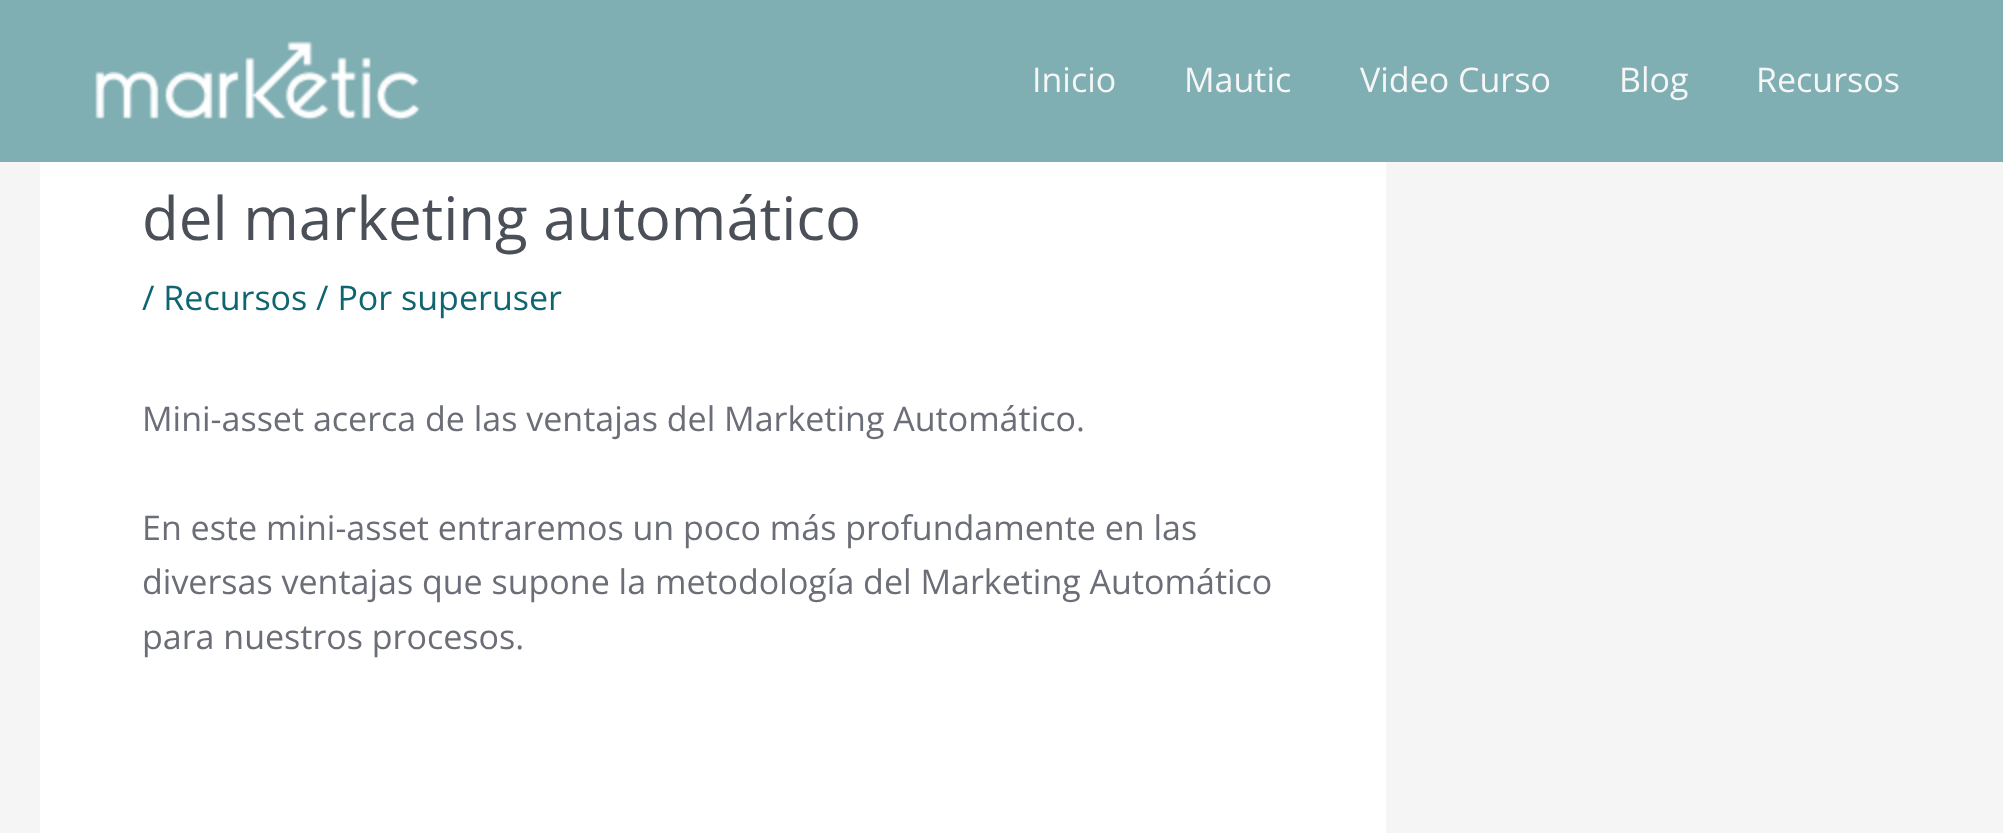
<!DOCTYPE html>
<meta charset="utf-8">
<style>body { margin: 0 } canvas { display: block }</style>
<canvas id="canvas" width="2003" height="833"></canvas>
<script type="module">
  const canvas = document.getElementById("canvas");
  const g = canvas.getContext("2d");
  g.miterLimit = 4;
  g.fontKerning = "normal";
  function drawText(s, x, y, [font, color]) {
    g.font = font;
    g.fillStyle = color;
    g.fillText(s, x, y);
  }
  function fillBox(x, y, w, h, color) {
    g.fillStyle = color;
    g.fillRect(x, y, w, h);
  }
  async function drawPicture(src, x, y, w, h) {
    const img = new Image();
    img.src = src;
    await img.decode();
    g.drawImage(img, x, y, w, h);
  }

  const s1 = ["34px Open Sans", "#F6F6F6"];
  const s2 = ["60px Open Sans", "#4B4F58"];
  const s3 = ["34px Open Sans", "#0F6670"];
  const s4 = ["34px Open Sans", "#6B6D77"];

  fillBox(0, 0, 2003, 833, "#F5F5F5");
  fillBox(0, 0, 2003, 162, "#7FAEB3");
  await drawPicture("pic1.png", 95, 41, 326, 79);
  drawText("Inicio", 1032, 92, s1);
  drawText("Mautic", 1184, 92, s1);
  drawText("Video Curso", 1360, 92, s1);
  drawText("Blog", 1619, 92, s1);
  drawText("Recursos", 1756, 92, s1);
  fillBox(40, 162, 1346, 671, "#FFFFFF");
  drawText("del marketing automático", 142, 240, s2);
  drawText("/ Recursos / Por superuser", 142, 310, s3);
  drawText("Mini-asset acerca de las ventajas del Marketing Automático.", 142, 431, s4);
  drawText("En este mini-asset entraremos un poco más profundamente en las", 142, 540, s4);
  drawText("diversas ventajas que supone la metodología del Marketing Automático", 142, 594, s4);
  drawText("para nuestros procesos.", 142, 649, s4);
</script>
